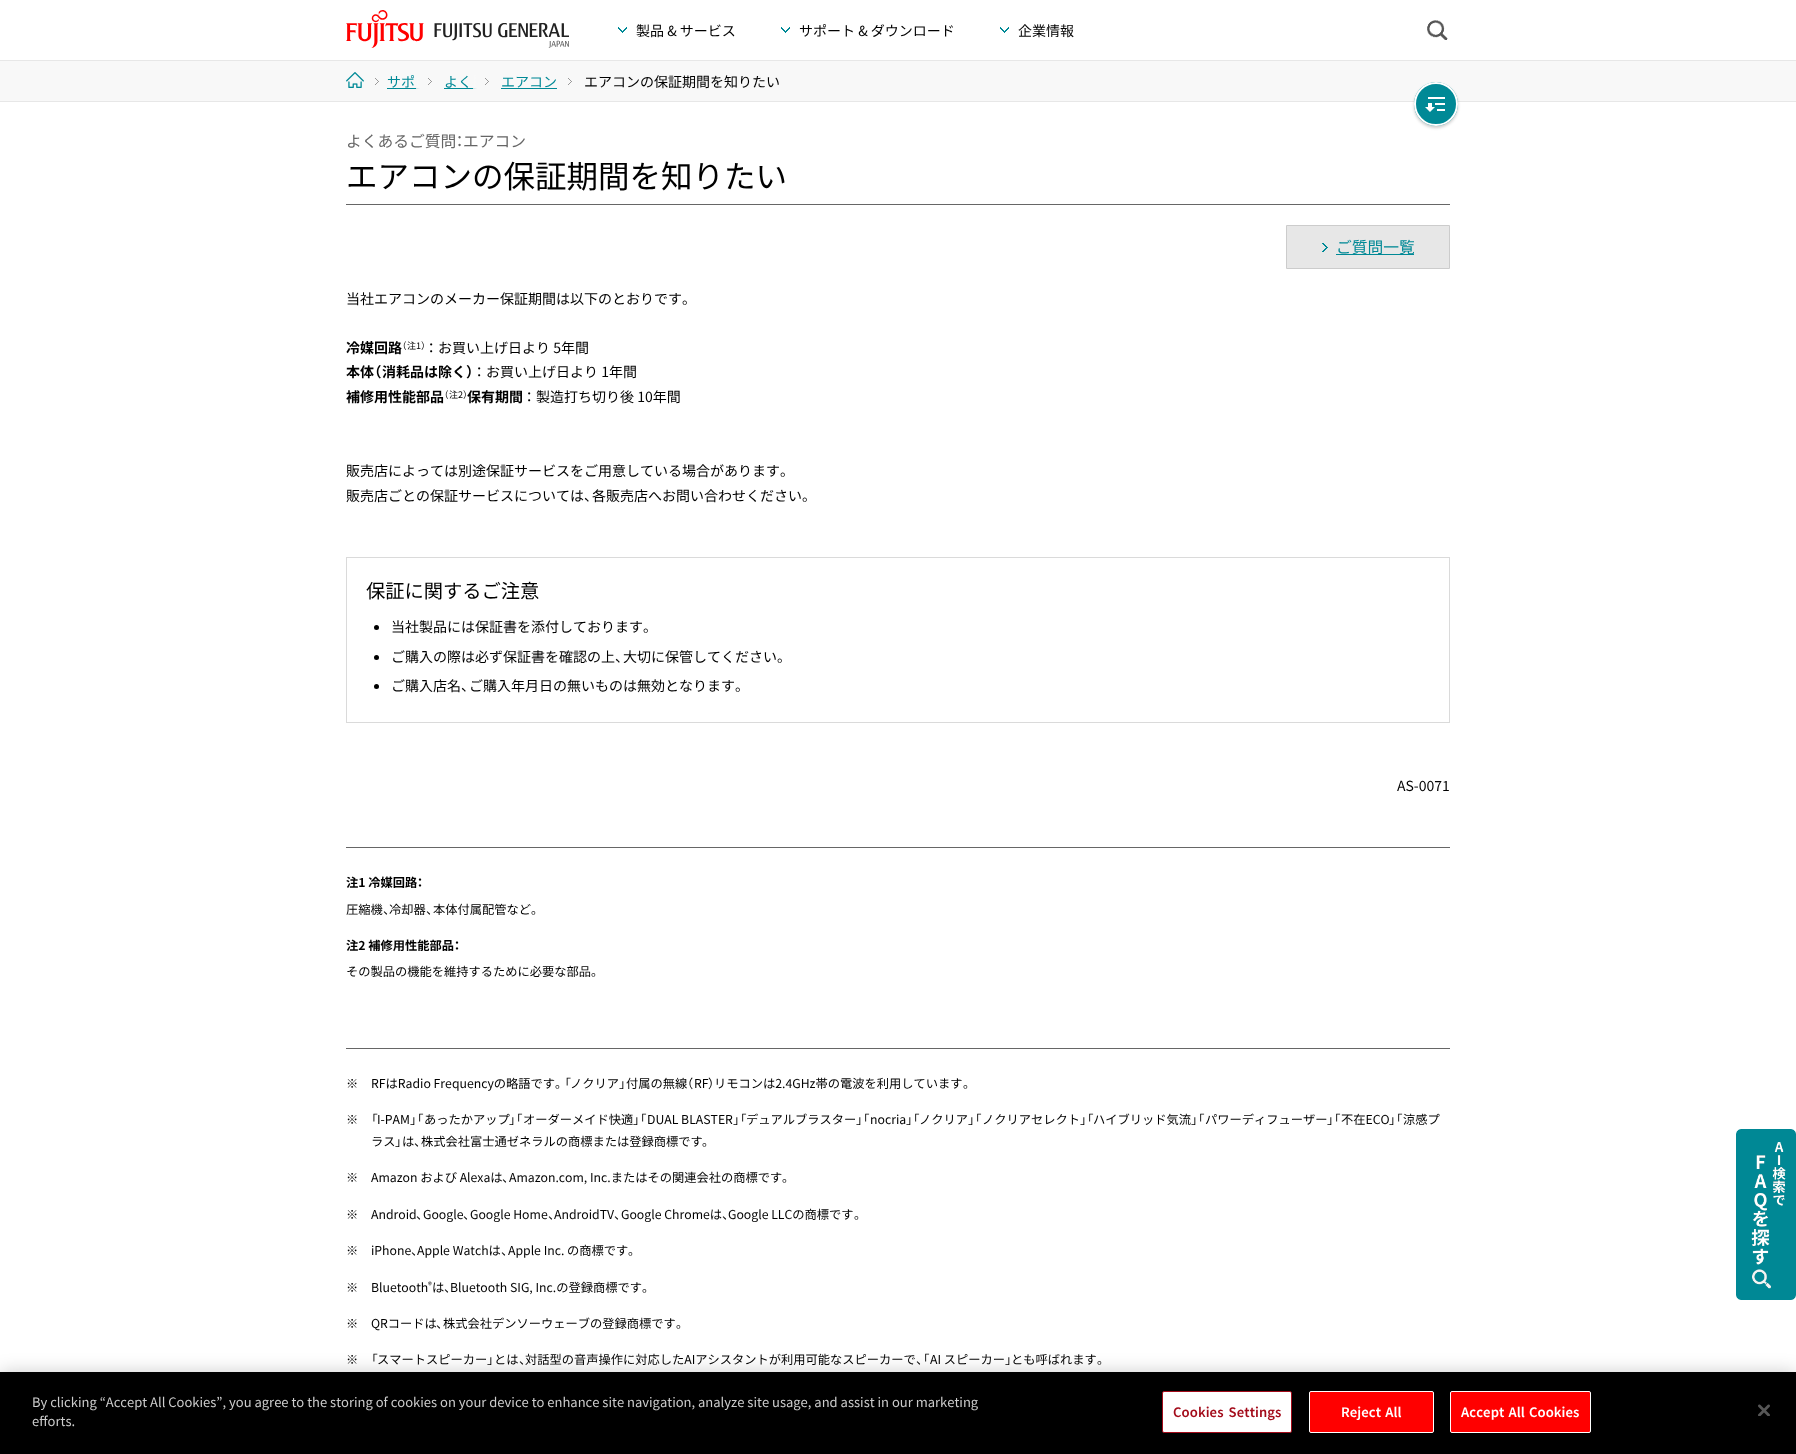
<!DOCTYPE html>
<meta charset="utf-8">
<style>body { margin: 0 } canvas { display: block }</style>
<canvas id="canvas" width="1796" height="1454"></canvas>
<script type="module">
  const canvas = document.getElementById("canvas");
  const g = canvas.getContext("2d");
  g.miterLimit = 4;
  g.fontKerning = "none";
  function drawText(s, x, y, [font, color]) {
    g.font = font;
    g.fillStyle = color;
    g.fillText(s, x, y);
  }
  function fillBox(x, y, w, h, color) {
    g.fillStyle = color;
    g.fillRect(x, y, w, h);
  }
  async function drawPicture(src, x, y, w, h) {
    const img = new Image();
    img.src = src;
    await img.decode();
    g.drawImage(img, x, y, w, h);
  }

  const s1 = ["14px Noto Sans JP", "#000000"];
  const s2 = ["14px Noto Sans JP", "#008996"];
  const s3 = ["15.75px Noto Sans JP", "#666666"];
  const s4 = ["15.75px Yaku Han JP", "#666666"];
  const s5 = ["31.5px Noto Sans JP", "#000000"];
  const s6 = ["15.75px Noto Sans JP", "#008996"];
  const s7 = ["14px Yaku Han JP", "#000000"];
  const s8 = ["bold 14px Noto Sans JP", "#000000"];
  const s9 = ["9px Yaku Han JP", "#000000"];
  const s10 = ["9px Noto Sans JP", "#000000"];
  const s11 = ["bold 14px Yaku Han JP", "#000000"];
  const s12 = ["19.25px Noto Sans JP", "#000000"];
  const s13 = ["bold 12.25px Noto Sans JP", "#000000"];
  const s14 = ["bold 12.25px Yaku Han JP", "#000000"];
  const s15 = ["12.25px Noto Sans JP", "#000000"];
  const s16 = ["12.25px Yaku Han JP", "#000000"];
  const s17 = ["8px Noto Sans JP", "#000000"];
  const s18 = ["13px Noto Sans JP", "#CCCCCC"];
  const s19 = ["600 13px Noto Sans JP", "#A30B1A"];
  const s20 = ["600 13px Noto Sans JP", "#FFFFFF"];

  fillBox(0, 0, 1796, 1454, "#FFFFFF");
  fillBox(0, 60, 1796, 1, "#E7E7E7");
  await drawPicture("pic1.png", 346, 10, 223, 38);
  await drawPicture("pic2.png", 618, 27, 9, 6);
  drawText("製品 & サービス", 636, 36, s1);
  await drawPicture("pic2.png", 781, 27, 9, 6);
  drawText("サポート & ダウンロード", 799, 36, s1);
  await drawPicture("pic2.png", 1000, 27, 9, 6);
  drawText("企業情報", 1018, 36, s1);
  await drawPicture("pic3.png", 1427, 20, 21, 20);
  fillBox(0, 61, 1796, 40, "#F8F8F8");
  fillBox(0, 101, 1796, 1, "#E7E7E7");
  await drawPicture("pic4.png", 375, 78, 4, 7);
  await drawPicture("pic5.png", 346, 72, 18, 16);
  drawText("サポ", 387, 87, s2);
  fillBox(387, 88, 33, 1, "#008996");
  await drawPicture("pic6.png", 416, 78, 16, 11);
  drawText("よく", 444, 87, s2);
  fillBox(444, 88, 33, 1, "#008996");
  await drawPicture("pic7.png", 473, 75, 16, 14);
  await drawPicture("pic4.png", 568, 78, 4, 7);
  drawText("エアコン", 501, 87, s2);
  fillBox(501, 88, 56, 1, "#008996");
  drawText("エアコンの保証期間を知りたい", 584, 87, s1);
  g.fillStyle = "rgba(0, 0, 0, 0.2)";
  g.filter = "blur(1.5px)";
  g.beginPath();
  g.roundRect(1414, 84, 44, 44, 22);
  g.fill();
  g.filter = "none";
  g.fillStyle = "#008996";
  g.beginPath();
  g.arc(1436, 104, 22, 0, Math.PI * 2);
  g.fill();
  await drawPicture("pic8.png", 1425, 97, 20, 15);
  g.beginPath();
  g.arc(1436, 104, 21, 0, Math.PI * 2);
  g.strokeStyle = "#FFFFFF";
  g.lineWidth = 2;
  g.stroke();
  fillBox(346, 204, 1104, 1, "#666666");
  drawText("よくあるご質問", 346, 147, s3);
  drawText("：", 456, 147, s4);
  drawText("エアコン", 463, 147, s3);
  drawText("エアコンの保証期間を知りたい", 346, 188, s5);
  g.fillStyle = "#E7E7E7";
  g.beginPath();
  g.rect(1286.5, 225.5, 163, 43);
  g.fill();
  g.strokeStyle = "#CCCCCC";
  g.lineWidth = 1;
  g.stroke();
  await drawPicture("pic9.png", 1322, 243, 6, 9);
  fillBox(1336, 254, 78, 1, "#008996");
  drawText("ご質問一覧", 1336, 253, s6);
  drawText("当社エアコンのメーカー保証期間は以下のとおりです", 346, 304, s1);
  drawText("。", 682, 304, s7);
  drawText("冷媒回路", 346, 353, s8);
  drawText("（", 402, 349, s9);
  drawText("注1", 407, 349, s10);
  drawText("）", 421, 349, s9);
  drawText("：", 428, 353, s7);
  drawText("お買い上げ日より 5年間", 438, 353, s1);
  drawText("本体", 346, 377, s8);
  drawText("（", 374, 377, s11);
  drawText("消耗品は除く", 382, 377, s8);
  drawText("）", 466, 377, s11);
  drawText("：", 476, 377, s7);
  drawText("お買い上げ日より 1年間", 486, 377, s1);
  drawText("補修用性能部品", 346, 402, s8);
  drawText("（", 444, 398, s9);
  drawText("注2", 449, 398, s10);
  drawText("）", 463, 398, s9);
  drawText("保有期間", 467, 402, s8);
  drawText("：", 526, 402, s7);
  drawText("製造打ち切り後 10年間", 536, 402, s1);
  drawText("販売店によっては別途保証サービスをご用意している場合があります", 346, 476, s1);
  drawText("。", 780, 476, s7);
  drawText("販売店ごとの保証サービスについては", 346, 501, s1);
  drawText("、", 584, 501, s7);
  drawText("各販売店へお問い合わせください", 592, 501, s1);
  drawText("。", 802, 501, s7);
  g.strokeStyle = "#DADADA";
  g.strokeRect(346.5, 557.5, 1103, 165);
  drawText("保証に関するご注意", 366, 598, s12);
  g.beginPath();
  g.arc(376.5, 627.5, 2.5, 0, Math.PI * 2);
  g.fill();
  drawText("当社製品には保証書を添付しております", 391, 632, s1);
  drawText("。", 643, 632, s7);
  g.beginPath();
  g.arc(376.5, 657.5, 2.5, 0, Math.PI * 2);
  g.fill();
  drawText("ご購入の際は必ず保証書を確認の上", 391, 662, s1);
  drawText("大切に保管してください", 623, 662, s1);
  drawText("、", 615, 662, s7);
  drawText("。", 777, 662, s7);
  g.beginPath();
  g.arc(376.5, 686.5, 2.5, 0, Math.PI * 2);
  g.fill();
  drawText("ご購入店名", 391, 691, s1);
  drawText("ご購入年月日の無いものは無効となります", 469, 691, s1);
  drawText("、", 461, 691, s7);
  drawText("。", 735, 691, s7);
  drawText("AS-0071", 1397, 791, s1);
  fillBox(346, 847, 1104, 1, "#666666");
  drawText("注1 冷媒回路", 346, 887, s13);
  drawText("：", 417, 887, s14);
  drawText("圧縮機", 346, 914, s15);
  drawText("、", 383, 914, s16);
  drawText("冷却器", 389, 914, s15);
  drawText("、", 426, 914, s16);
  drawText("本体付属配管など", 433, 914, s15);
  drawText("。", 531, 914, s16);
  drawText("注2 補修用性能部品", 346, 950, s13);
  drawText("：", 454, 950, s14);
  drawText("その製品の機能を維持するために必要な部品", 346, 976, s15);
  drawText("。", 591, 976, s16);
  fillBox(346, 1048, 1104, 1, "#666666");
  drawText("※", 346, 1088, s15);
  drawText("RFはRadio Frequencyの略語です", 371, 1088, s15);
  drawText("。「", 555, 1088, s16);
  drawText("ノクリア", 570, 1088, s15);
  drawText("」", 619, 1088, s16);
  drawText("付属の無線", 626, 1088, s15);
  drawText("（", 687, 1088, s16);
  drawText("RF", 694, 1088, s15);
  drawText("）", 708, 1088, s16);
  drawText("リモコンは2.4GHz帯の電波を利用しています", 714, 1088, s15);
  drawText("。", 963, 1088, s16);
  drawText("※", 346, 1124, s15);
  drawText("「", 371, 1124, s16);
  drawText("I-PAM", 377, 1124, s15);
  drawText("」「", 410, 1124, s16);
  drawText("あったかアップ", 424, 1124, s15);
  drawText("」「", 509, 1124, s16);
  drawText("オーダーメイド快適", 523, 1124, s15);
  drawText("」「", 633, 1124, s16);
  drawText("DUAL BLASTER", 647, 1124, s15);
  drawText("」「", 733, 1124, s16);
  drawText("デュアルブラスター", 746, 1124, s15);
  drawText("」「", 856, 1124, s16);
  drawText("nocria", 870, 1124, s15);
  drawText("」「", 906, 1124, s16);
  drawText("ノクリア", 919, 1124, s15);
  drawText("」「", 968, 1124, s16);
  drawText("ノクリアセレクト", 982, 1124, s15);
  drawText("」「", 1080, 1124, s16);
  drawText("ハイブリッド気流", 1093, 1124, s15);
  drawText("」「", 1191, 1124, s16);
  drawText("パワーディフューザー", 1205, 1124, s15);
  drawText("」「", 1327, 1124, s16);
  drawText("不在ECO", 1341, 1124, s15);
  drawText("」「", 1389, 1124, s16);
  drawText("涼感プ", 1403, 1124, s15);
  drawText("ラス", 371, 1146, s15);
  drawText("」", 395, 1146, s16);
  drawText("は", 402, 1146, s15);
  drawText("、", 414, 1146, s16);
  drawText("株式会社富士通ゼネラルの商標または登録商標です", 421, 1146, s15);
  drawText("。", 702, 1146, s16);
  drawText("※", 346, 1182, s15);
  drawText("Amazon および Alexaは", 371, 1182, s15);
  drawText("、", 502, 1182, s16);
  drawText("Amazon.com, Inc.またはその関連会社の商標です", 509, 1182, s15);
  drawText("。", 782, 1182, s16);
  drawText("※", 346, 1219, s15);
  drawText("Android", 371, 1219, s15);
  drawText("、", 416, 1219, s16);
  drawText("Google", 423, 1219, s15);
  drawText("、", 463, 1219, s16);
  drawText("Google Home", 470, 1219, s15);
  drawText("、", 548, 1219, s16);
  drawText("AndroidTV", 554, 1219, s15);
  drawText("、", 614, 1219, s16);
  drawText("Google Chromeは", 621, 1219, s15);
  drawText("、", 722, 1219, s16);
  drawText("Google LLCの商標です", 728, 1219, s15);
  drawText("。", 854, 1219, s16);
  drawText("※", 346, 1255, s15);
  drawText("iPhone", 371, 1255, s15);
  drawText("、", 411, 1255, s16);
  drawText("Apple Watchは", 417, 1255, s15);
  drawText("、", 501, 1255, s16);
  drawText("Apple Inc. の商標です", 508, 1255, s15);
  drawText("。", 628, 1255, s16);
  drawText("※", 346, 1292, s15);
  drawText("Bluetooth", 371, 1292, s15);
  drawText("®", 428, 1288, s17);
  drawText("は", 432, 1292, s15);
  drawText("、", 444, 1292, s16);
  drawText("Bluetooth SIG, Inc.の登録商標です", 450, 1292, s15);
  drawText("。", 642, 1292, s16);
  drawText("※", 346, 1328, s15);
  drawText("QRコードは", 371, 1328, s15);
  drawText("、", 436, 1328, s16);
  drawText("株式会社デンソーウェーブの登録商標です", 443, 1328, s15);
  drawText("。", 676, 1328, s16);
  drawText("※", 346, 1364, s15);
  drawText("「", 371, 1364, s16);
  drawText("スマートスピーカー", 377, 1364, s15);
  drawText("」", 487, 1364, s16);
  drawText("とは", 494, 1364, s15);
  drawText("、", 519, 1364, s16);
  drawText("対話型の音声操作に対応したAIアシスタントが利用可能なスピーカーで", 525, 1364, s15);
  drawText("、「", 916, 1364, s16);
  drawText("AI スピーカー", 930, 1364, s15);
  drawText("」", 1005, 1364, s16);
  drawText("とも呼ばれます", 1011, 1364, s15);
  drawText("。", 1097, 1364, s16);
  await drawPicture("pic10.png", 1736, 1129, 60, 171);
  g.fillStyle = "rgba(0, 0, 0, 0.2)";
  g.filter = "blur(9px)";
  g.beginPath();
  g.rect(0, 1372, 1796, 82);
  g.fill();
  g.filter = "none";
  fillBox(0, 1372, 1796, 82, "#000000");
  drawText("By clicking “Accept All Cookies”,", 32, 1407, s18);
  drawText("you agree to the storing of cookies on your device to enhance site navigation,", 229, 1407, s18);
  drawText("analyze site usage, and assist in our marketing", 698, 1407, s18);
  drawText("efforts.", 32, 1426, s18);
  g.fillStyle = "#FFFFFF";
  g.beginPath();
  g.roundRect(1162.5, 1391.5, 129, 41, 1.5);
  g.fill();
  g.strokeStyle = "#A30B1A";
  g.stroke();
  g.letterSpacing = "0.1px";
  g.wordSpacing = "2px";
  drawText("Cookies Settings", 1173, 1417, s19);
  g.fillStyle = "#FF0000";
  g.beginPath();
  g.roundRect(1309.5, 1391.5, 124, 41, 1.5);
  g.fill();
  g.strokeStyle = "#FFFFFF";
  g.stroke();
  g.wordSpacing = "1px";
  drawText("Reject All", 1341, 1417, s20);
  g.fillStyle = "#FF0000";
  g.beginPath();
  g.roundRect(1450.5, 1391.5, 140, 41, 1.5);
  g.fill();
  g.stroke();
  drawText("Accept All Cookies", 1461, 1417, s20);
  await drawPicture("pic11.png", 1758, 1404, 12, 12);
</script>
